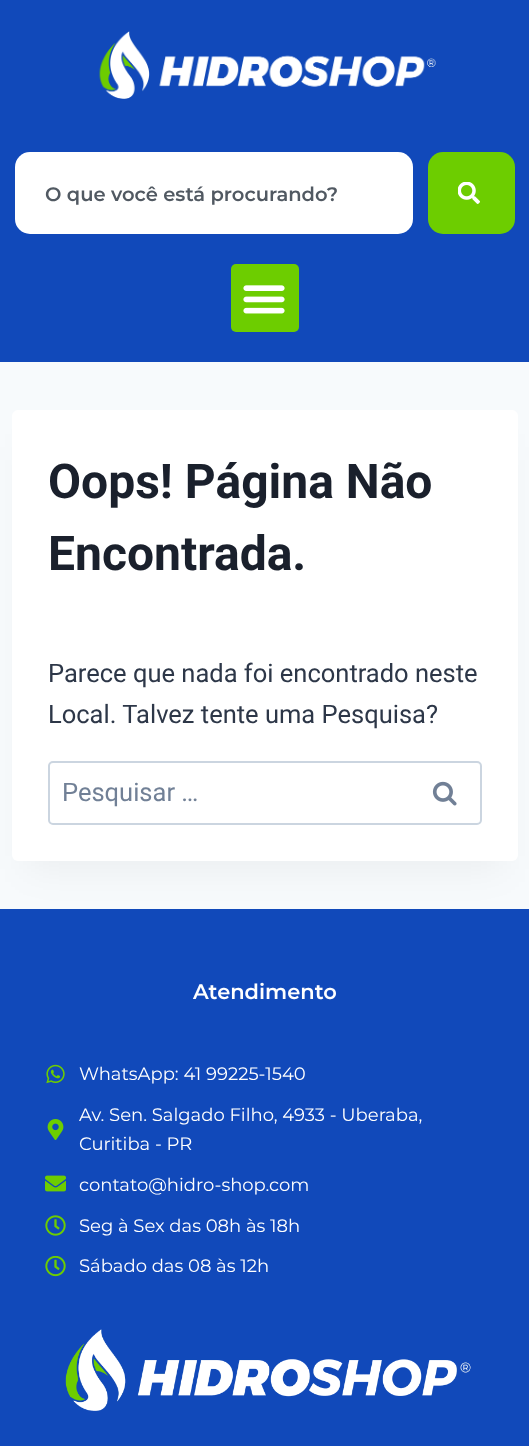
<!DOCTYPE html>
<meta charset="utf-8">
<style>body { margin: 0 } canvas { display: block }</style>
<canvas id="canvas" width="529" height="1446"></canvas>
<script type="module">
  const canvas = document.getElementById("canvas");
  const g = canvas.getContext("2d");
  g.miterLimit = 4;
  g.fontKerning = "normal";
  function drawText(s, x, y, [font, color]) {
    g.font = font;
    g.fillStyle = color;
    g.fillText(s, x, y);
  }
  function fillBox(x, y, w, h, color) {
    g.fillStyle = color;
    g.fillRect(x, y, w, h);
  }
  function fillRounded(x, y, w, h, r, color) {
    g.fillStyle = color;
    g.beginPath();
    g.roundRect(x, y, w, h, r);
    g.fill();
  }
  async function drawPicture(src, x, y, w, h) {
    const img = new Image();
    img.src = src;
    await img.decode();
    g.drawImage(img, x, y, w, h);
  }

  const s1 = ["600 19.5px Montserrat", "#515962"];
  const s2 = ["bold 48px Roboto", "#1A202C"];
  const s3 = ["25.5px Roboto", "#2D3748"];
  const s4 = ["25.5px Roboto", "#718096"];
  const s5 = ["600 21px Montserrat", "#FFFFFF"];
  const s6 = ["18px Montserrat", "#FFFFFF"];

  fillBox(0, 0, 529, 1446, "#F7FAFC");
  fillBox(0, 0, 529, 362, "#1149BA");
  await drawPicture("pic1.png", 99, 31, 337, 68);
  fillRounded(15, 152, 398, 82, 15, "#FFFFFF");
  drawText("O que você está procurando?", 45, 201, s1);
  fillRounded(428, 152, 87, 82, 15, "#6DCD00");
  await drawPicture("pic2.png", 458, 182, 22, 22);
  fillRounded(231, 264, 68, 68, 5, "#6DCD00");
  await drawPicture("pic3.png", 243, 285, 42, 29);
  g.fillStyle = "rgba(0, 0, 0, 0.05)";
  g.filter = "blur(19px)";
  g.beginPath();
  g.rect(27, 447, 476, 422);
  g.fill();
  g.filter = "none";
  fillRounded(12, 410, 506, 451, 6, "#FFFFFF");
  drawText("Oops! Página Não", 48, 498, s2);
  drawText("Encontrada.", 48, 570, s2);
  drawText("Parece que nada foi encontrado neste", 48, 682, s3);
  drawText("Local. Talvez tente uma Pesquisa?", 48, 723, s3);
  g.beginPath();
  g.roundRect(49, 762, 432, 62, 4);
  g.strokeStyle = "#CBD5E0";
  g.lineWidth = 2;
  g.stroke();
  drawText("Pesquisar …", 62, 801, s4);
  await drawPicture("pic4.png", 432, 781, 25, 25);
  fillBox(0, 909, 529, 537, "#1149BA");
  drawText("Atendimento", 193, 999, s5);
  await drawPicture("pic5.png", 46, 1064, 19, 20);
  drawText("WhatsApp: 41 99225-1540", 79, 1080, s6);
  await drawPicture("pic6.png", 47, 1119, 17, 21);
  drawText("Av. Sen. Salgado Filho, 4933 - Uberaba,", 79, 1121, s6);
  drawText("Curitiba - PR", 79, 1150, s6);
  await drawPicture("pic7.png", 45, 1175, 21, 17);
  drawText("contato@hidro-shop.com", 79, 1191, s6);
  await drawPicture("pic8.png", 45, 1215, 21, 21);
  drawText("Seg à Sex das 08h às 18h", 79, 1232, s6);
  await drawPicture("pic9.png", 45, 1256, 21, 21);
  drawText("Sábado das 08 às 12h", 79, 1272, s6);
  await drawPicture("pic10.png", 65, 1329, 406, 82);
</script>
